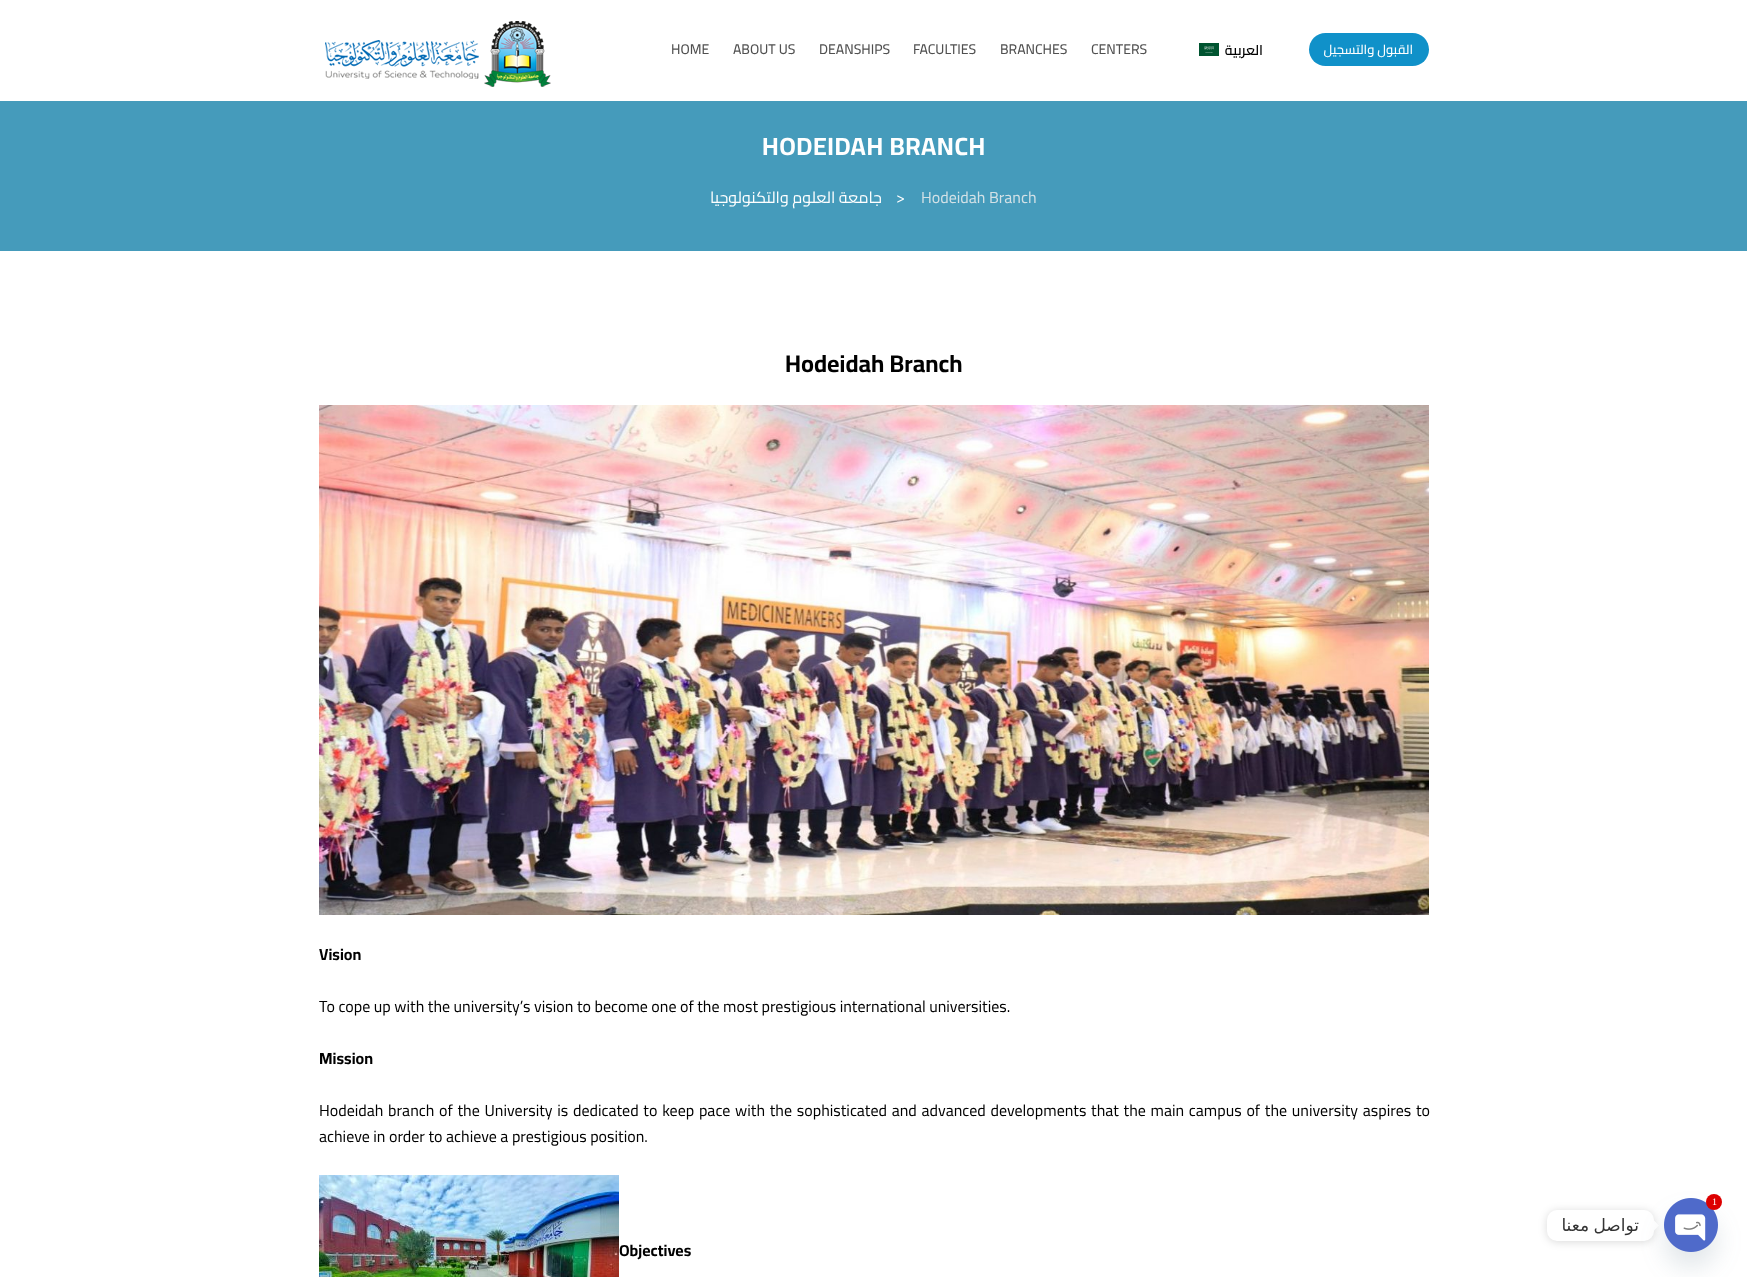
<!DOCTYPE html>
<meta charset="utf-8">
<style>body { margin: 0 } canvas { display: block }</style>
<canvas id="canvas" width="1747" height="1277"></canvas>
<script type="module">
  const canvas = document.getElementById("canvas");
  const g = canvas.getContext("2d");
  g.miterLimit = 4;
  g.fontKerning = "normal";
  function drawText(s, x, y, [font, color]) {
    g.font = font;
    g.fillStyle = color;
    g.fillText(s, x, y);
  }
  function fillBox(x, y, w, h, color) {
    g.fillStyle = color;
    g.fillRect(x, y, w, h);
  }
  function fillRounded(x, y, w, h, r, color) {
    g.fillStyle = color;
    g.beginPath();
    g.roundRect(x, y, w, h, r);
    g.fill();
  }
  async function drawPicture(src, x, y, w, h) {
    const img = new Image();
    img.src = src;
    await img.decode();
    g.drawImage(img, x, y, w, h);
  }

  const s1 = ["500 14px Cairo", "#505050"];
  const s2 = ["600 14px Cairo", "#000000"];
  const s3 = ["500 13px Cairo", "#FFFFFF"];
  const s4 = ["bold 25px Cairo", "#FFFFFF"];
  const s5 = ["16px Cairo", "#FFFFFF"];
  const s6 = ["16px Cairo", "#D3E1E6"];
  const s7 = ["bold 24px Cairo", "#000000"];
  const s8 = ["bold 16px Cairo", "#000000"];
  const s9 = ["16px Cairo", "#000000"];
  const s10 = ["10px Liberation Serif", "#FFFFFF"];
  const s11 = ["17px DejaVu Sans", "#333333"];

  fillBox(0, 0, 1747, 1277, "#FFFFFF");
  await drawPicture("pic1.png", 325, 21, 226, 66);
  drawText("HOME", 671, 54, s1);
  drawText("ABOUT US", 733, 54, s1);
  drawText("DEANSHIPS", 819, 54, s1);
  drawText("FACULTIES", 913, 54, s1);
  drawText("BRANCHES", 1000, 54, s1);
  drawText("CENTERS", 1091, 54, s1);
  await drawPicture("pic2.png", 1199, 43, 20, 13);
  g.direction = "rtl";
  drawText("العربية", 1263, 55, s2);
  fillRounded(1309, 33, 120, 33, 16.5, "#1091C9");
  drawText("القبول والتسجيل", 1413, 54, s3);
  fillBox(0, 101, 1747, 150, "#459BBB");
  g.letterSpacing = "0.5px";
  g.direction = "ltr";
  drawText("HODEIDAH BRANCH", 762, 155, s4);
  g.letterSpacing = "0px";
  g.direction = "rtl";
  drawText("جامعة العلوم والتكنولوجيا", 882, 203, s5);
  g.direction = "ltr";
  drawText(">", 896, 203, s5);
  drawText("Hodeidah Branch", 921, 203, s6);
  drawText("Hodeidah Branch", 785, 372, s7);
  await drawPicture("pic3.png", 319, 405, 1110, 510);
  drawText("Vision", 319, 960, s8);
  drawText("To cope up with the university’s vision to become one of the most prestigious international universities.", 319, 1012, s9);
  drawText("Mission", 319, 1064, s8);
  g.wordSpacing = "1.2px";
  drawText("Hodeidah branch of the University is dedicated to keep pace with the sophisticated and advanced developments that the main campus of the university aspires to", 319, 1116, s9);
  g.wordSpacing = "0px";
  drawText("achieve in order to achieve a prestigious position.", 319, 1142, s9);
  await drawPicture("pic4.png", 319, 1175, 300, 102);
  drawText("Objectives", 619, 1256, s8);
  g.fillStyle = "rgba(0, 0, 0, 0.15)";
  g.filter = "blur(4px)";
  g.beginPath();
  g.roundRect(1547, 1211, 107, 31, 10);
  g.fill();
  g.filter = "none";
  fillRounded(1547, 1210, 107, 31, 10, "#FFFFFF");
  g.beginPath();
  g.moveTo(1654, 1230.5);
  g.lineTo(1654, 1220.5);
  g.lineTo(1659, 1225.5);
  g.closePath();
  g.fill();
  g.fillStyle = "rgba(73, 104, 126, 0.16)";
  g.filter = "blur(12px)";
  g.beginPath();
  g.roundRect(1664, 1214, 54, 54, 27);
  g.fill();
  g.filter = "none";
  await drawPicture("pic5.png", 1664, 1198, 54, 54);
  g.fillStyle = "#DD0000";
  g.beginPath();
  g.arc(1714, 1202, 8, 0, Math.PI * 2);
  g.fill();
  drawText("1", 1712, 1205, s10);
  g.wordSpacing = "-1px";
  g.direction = "rtl";
  drawText("تواصل معنا", 1639, 1231, s11);
</script>
